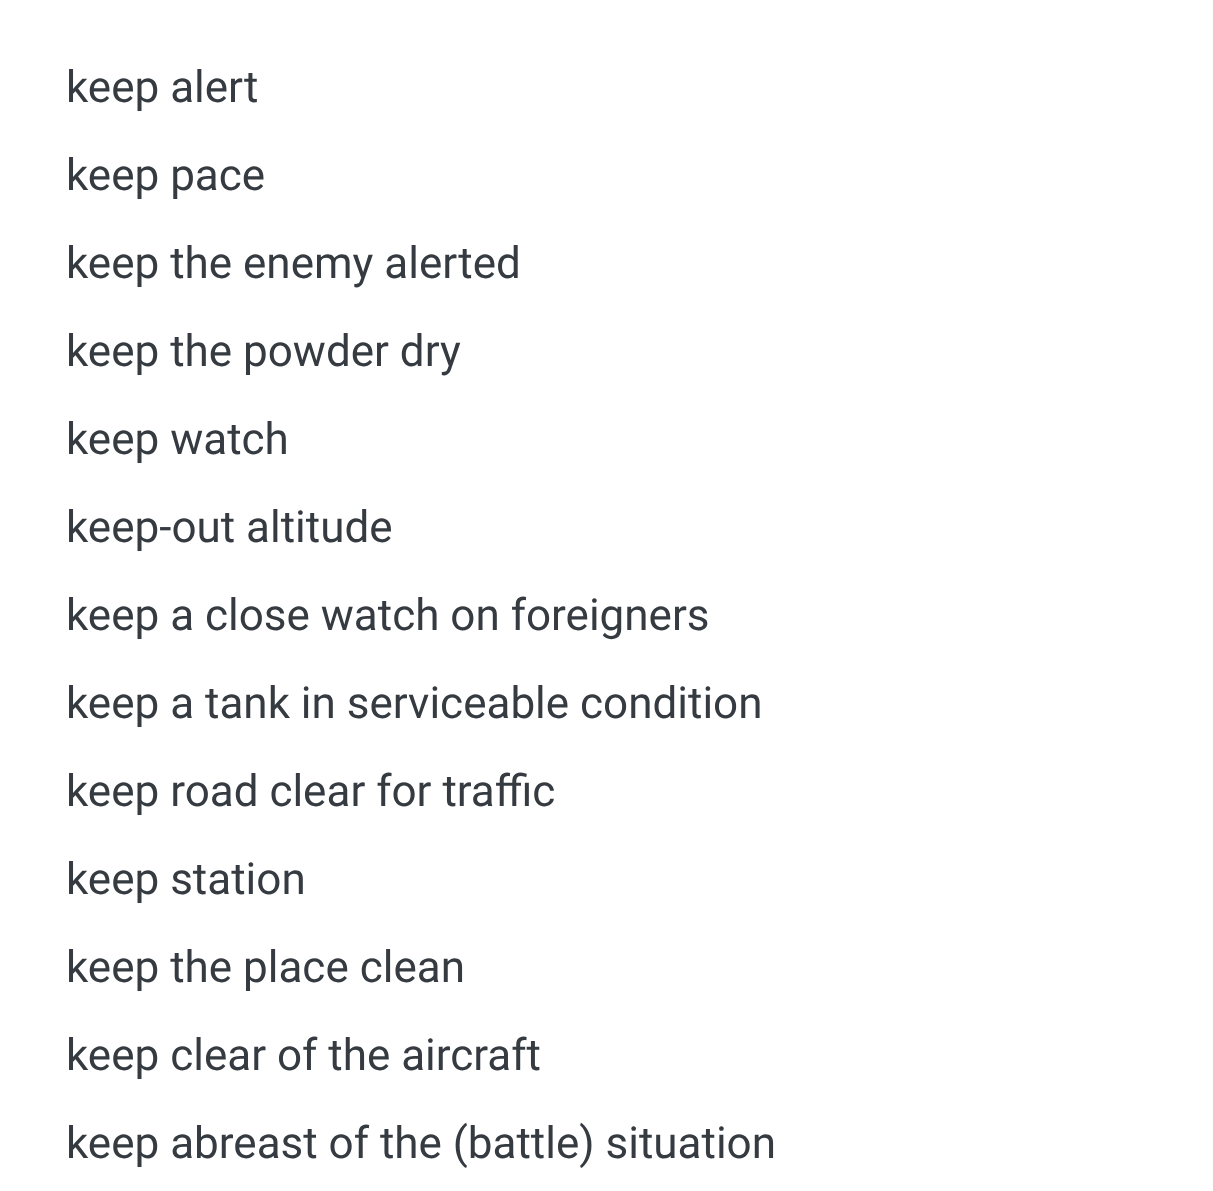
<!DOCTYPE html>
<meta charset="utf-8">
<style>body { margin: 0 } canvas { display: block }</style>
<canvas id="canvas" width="1213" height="1191"></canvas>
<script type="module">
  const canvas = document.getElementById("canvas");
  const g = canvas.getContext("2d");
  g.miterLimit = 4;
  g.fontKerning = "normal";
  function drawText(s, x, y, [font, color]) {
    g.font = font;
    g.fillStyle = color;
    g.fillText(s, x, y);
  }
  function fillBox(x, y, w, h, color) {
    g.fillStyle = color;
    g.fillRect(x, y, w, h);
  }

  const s1 = ["44px Roboto", "#353B41"];

  fillBox(0, 0, 1213, 1191, "#FFFFFF");
  drawText("keep alert", 66, 102, s1);
  drawText("keep pace", 66, 190, s1);
  drawText("keep the enemy alerted", 66, 278, s1);
  drawText("keep the powder dry", 66, 366, s1);
  drawText("keep watch", 66, 454, s1);
  drawText("keep-out altitude", 66, 542, s1);
  drawText("keep a close watch on foreigners", 66, 630, s1);
  drawText("keep a tank in serviceable condition", 66, 718, s1);
  drawText("keep road clear for traffic", 66, 806, s1);
  drawText("keep station", 66, 894, s1);
  drawText("keep the place clean", 66, 982, s1);
  drawText("keep clear of the aircraft", 66, 1070, s1);
  drawText("keep abreast of the (battle) situation", 66, 1158, s1);
</script>
